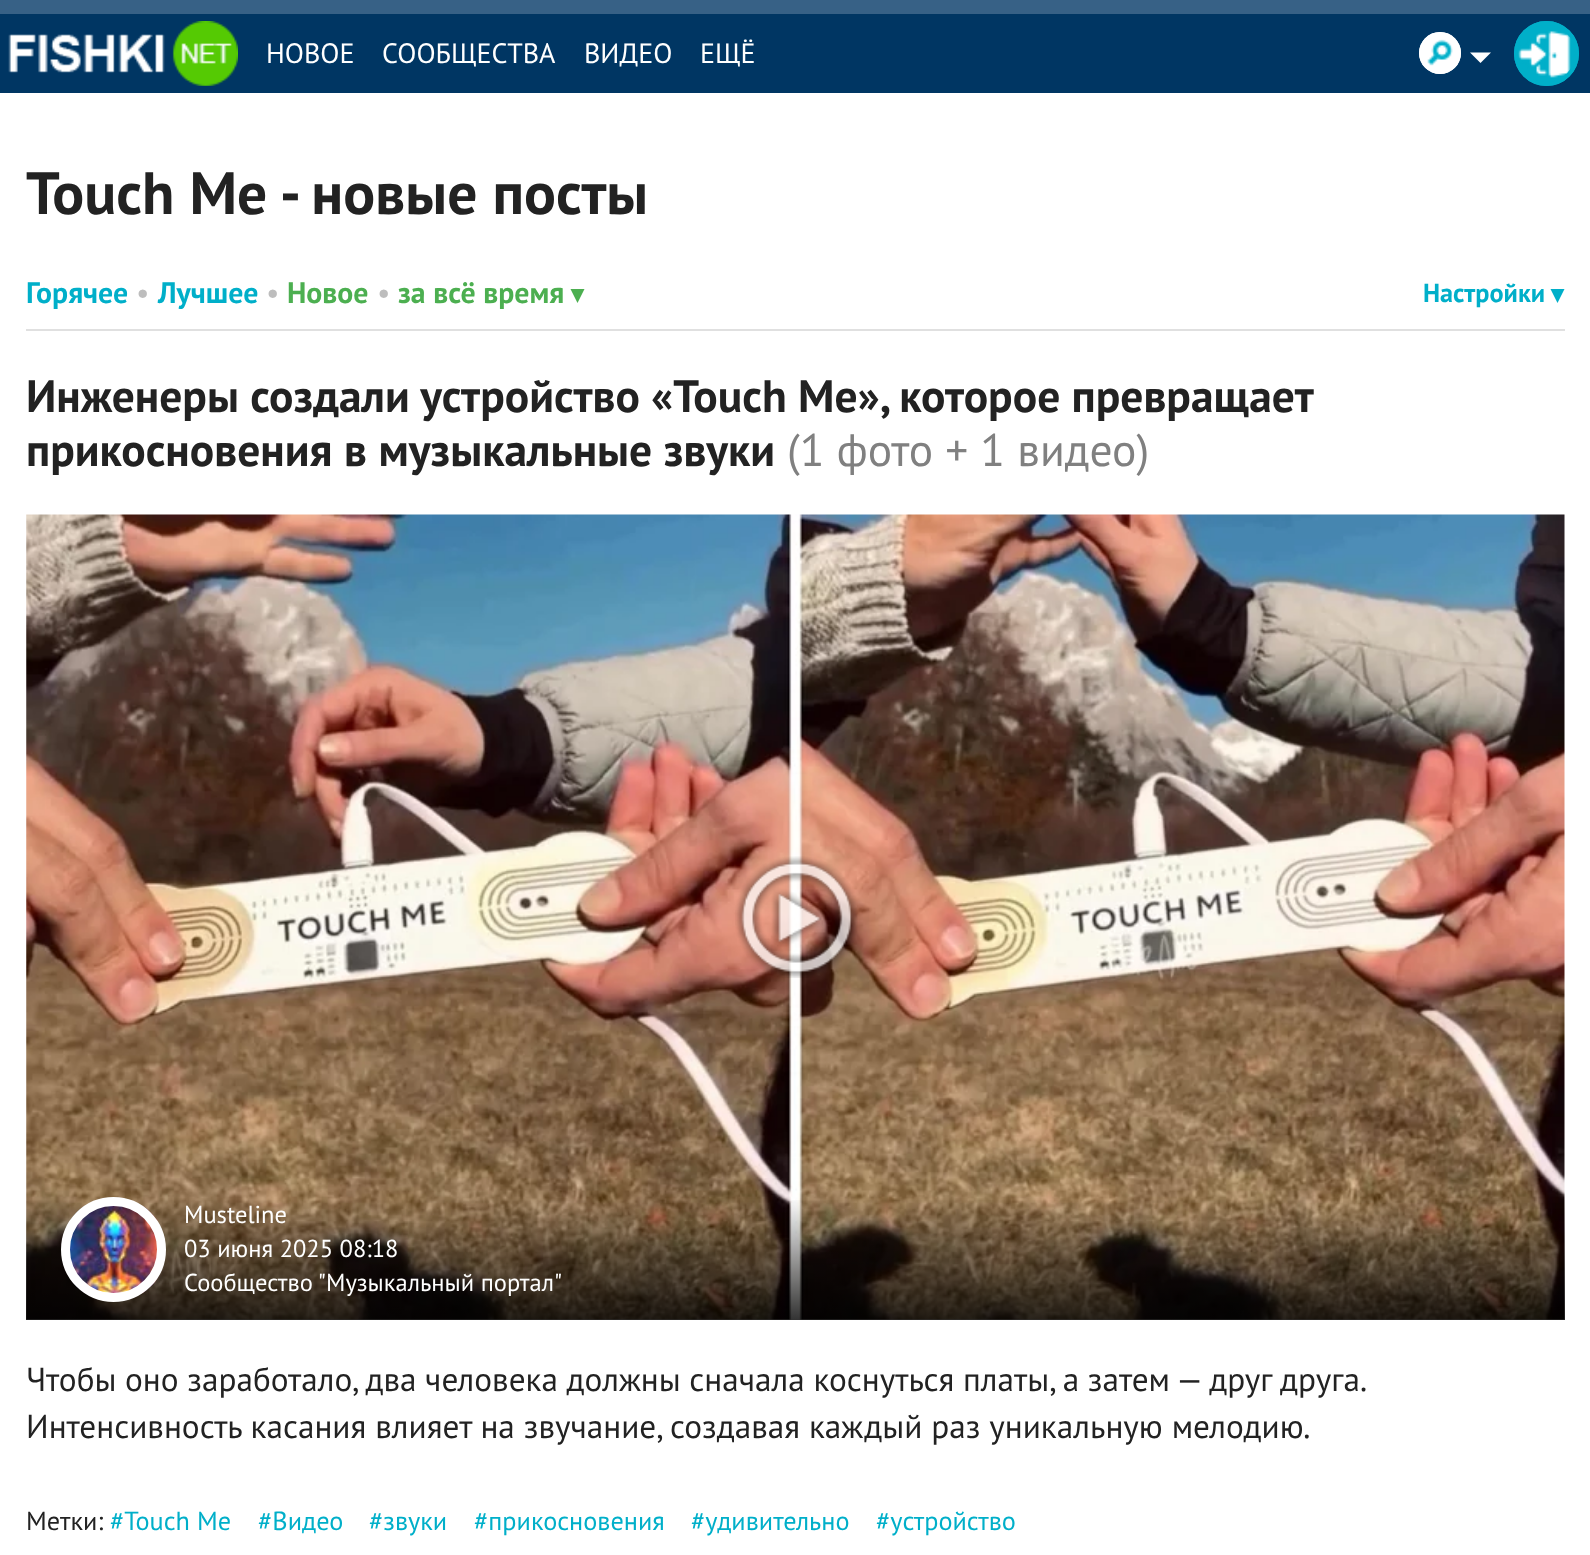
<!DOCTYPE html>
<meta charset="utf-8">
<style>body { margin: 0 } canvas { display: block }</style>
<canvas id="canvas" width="1590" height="1555"></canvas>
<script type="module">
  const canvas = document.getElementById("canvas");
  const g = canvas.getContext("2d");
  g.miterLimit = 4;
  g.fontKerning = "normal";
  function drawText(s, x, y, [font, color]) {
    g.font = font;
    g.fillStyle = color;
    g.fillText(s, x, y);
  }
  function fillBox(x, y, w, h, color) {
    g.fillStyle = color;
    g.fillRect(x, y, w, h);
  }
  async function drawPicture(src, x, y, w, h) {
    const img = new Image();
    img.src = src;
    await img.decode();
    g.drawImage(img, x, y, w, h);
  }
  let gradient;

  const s1 = ["28px PT Sans", "#FFFFFF"];
  const s2 = ["bold 59.5px PT Sans", "#222222"];
  const s3 = ["bold 29.75px PT Sans", "#00AFC9"];
  const s4 = ["29.75px PT Sans", "#BDBDBD"];
  const s5 = ["bold 29.75px PT Sans", "#4CAF50"];
  const s6 = ["bold 26.25px PT Sans", "#00AFC9"];
  const s7 = ["bold 45.5px PT Sans", "#222222"];
  const s8 = ["45.5px PT Sans", "#808080"];
  const s9 = ["24.5px PT Sans", "#FFFFFF"];
  const s10 = ["33.25px PT Sans", "#222222"];
  const s11 = ["26.25px PT Sans", "#222222"];
  const s12 = ["26.25px PT Sans", "#00AFC9"];

  fillBox(0, 0, 1590, 1555, "#FFFFFF");
  fillBox(0, 14, 1590, 79, "#003663");
  fillBox(0, 0, 1590, 14, "#376186");
  await drawPicture("pic1.png", 8, 21, 230, 65);
  drawText("НОВОЕ", 266, 63, s1);
  drawText("СООБЩЕСТВА", 382, 63, s1);
  drawText("ВИДЕО", 584, 63, s1);
  drawText("ЕЩЁ", 700, 63, s1);
  g.beginPath();
  g.arc(1440, 53, 21, 0, Math.PI * 2);
  g.fill();
  await drawPicture("pic2.png", 1427, 39, 26, 27);
  g.beginPath();
  g.arc(1440, 53, 19, 0, Math.PI * 2);
  g.strokeStyle = "#FFFFFF";
  g.lineWidth = 4;
  g.stroke();
  g.beginPath();
  g.moveTo(1470, 52.5);
  g.lineTo(1491, 52.5);
  g.lineTo(1480.5, 63);
  g.closePath();
  g.fill();
  g.fillStyle = "#00AFC9";
  g.beginPath();
  g.arc(1546.5, 53.5, 32.5, 0, Math.PI * 2);
  g.fill();
  await drawPicture("pic3.png", 1518, 31, 53, 47);
  g.beginPath();
  g.arc(1546.5, 53.5, 30.5, 0, Math.PI * 2);
  g.strokeStyle = "#00AFC9";
  g.stroke();
  drawText("Touch Me - новые посты", 26, 214, s2);
  fillBox(26, 329, 1539, 2, "#E0E0E0");
  drawText("Горячее", 26, 303, s3);
  drawText("•", 136, 303, s4);
  drawText("Лучшее", 158, 303, s3);
  drawText("•", 266, 303, s4);
  drawText("Новое", 287, 303, s5);
  drawText("•", 377, 303, s4);
  drawText("за всё время", 398, 303, s5);
  g.beginPath();
  g.moveTo(570.5, 289);
  g.lineTo(584.5, 289);
  g.lineTo(577.5, 303);
  g.closePath();
  g.fill();
  drawText("Настройки", 1423, 302, s6);
  g.beginPath();
  g.moveTo(1550.5, 289);
  g.lineTo(1564.5, 289);
  g.lineTo(1557.5, 303);
  g.closePath();
  g.fill();
  g.wordSpacing = "-0.25px";
  drawText("Инженеры создали устройство «Touch Me», которое превращает", 26, 412, s7);
  g.wordSpacing = "0px";
  drawText("прикосновения в музыкальные звуки", 26, 466, s7);
  drawText("(1 фото + 1 видео)", 787, 466, s8);
  await drawPicture("pic4.png", 26, 514, 1539, 806);
  await drawPicture("pic5.png", 735, 856, 123, 122);
  gradient = g.createLinearGradient(795, 1320, 795, 1197);
  gradient.addColorStop(0, "rgba(0, 0, 0, 0.8)");
  gradient.addColorStop(1, "rgba(0, 0, 0, 0)");
  g.fillStyle = gradient;
  g.fillRect(26, 1200, 1539, 120);
  await drawPicture("pic6.png", 70, 1205, 88, 89);
  g.beginPath();
  g.arc(113.5, 1249.5, 48, 0, Math.PI * 2);
  g.strokeStyle = "#FFFFFF";
  g.lineWidth = 9;
  g.stroke();
  drawText("Musteline", 184, 1223, s9);
  drawText("03 июня 2025 08:18", 184, 1257, s9);
  drawText("Сообщество \"Музыкальный портал\"", 184, 1291, s9);
  g.wordSpacing = "-0.25px";
  drawText("Чтобы оно заработало, два человека должны сначала коснуться платы, а затем — друг друга.", 26, 1391, s10);
  g.wordSpacing = "0px";
  drawText("Интенсивность касания влияет на звучание, создавая каждый раз уникальную мелодию.", 26, 1438, s10);
  drawText("Метки:", 26, 1530, s11);
  drawText("#Touch Me", 110, 1530, s12);
  drawText("#Видео", 258, 1530, s12);
  drawText("#звуки", 369, 1530, s12);
  drawText("#прикосновения", 474, 1530, s12);
  drawText("#удивительно", 691, 1530, s12);
  drawText("#устройство", 876, 1530, s12);
</script>
